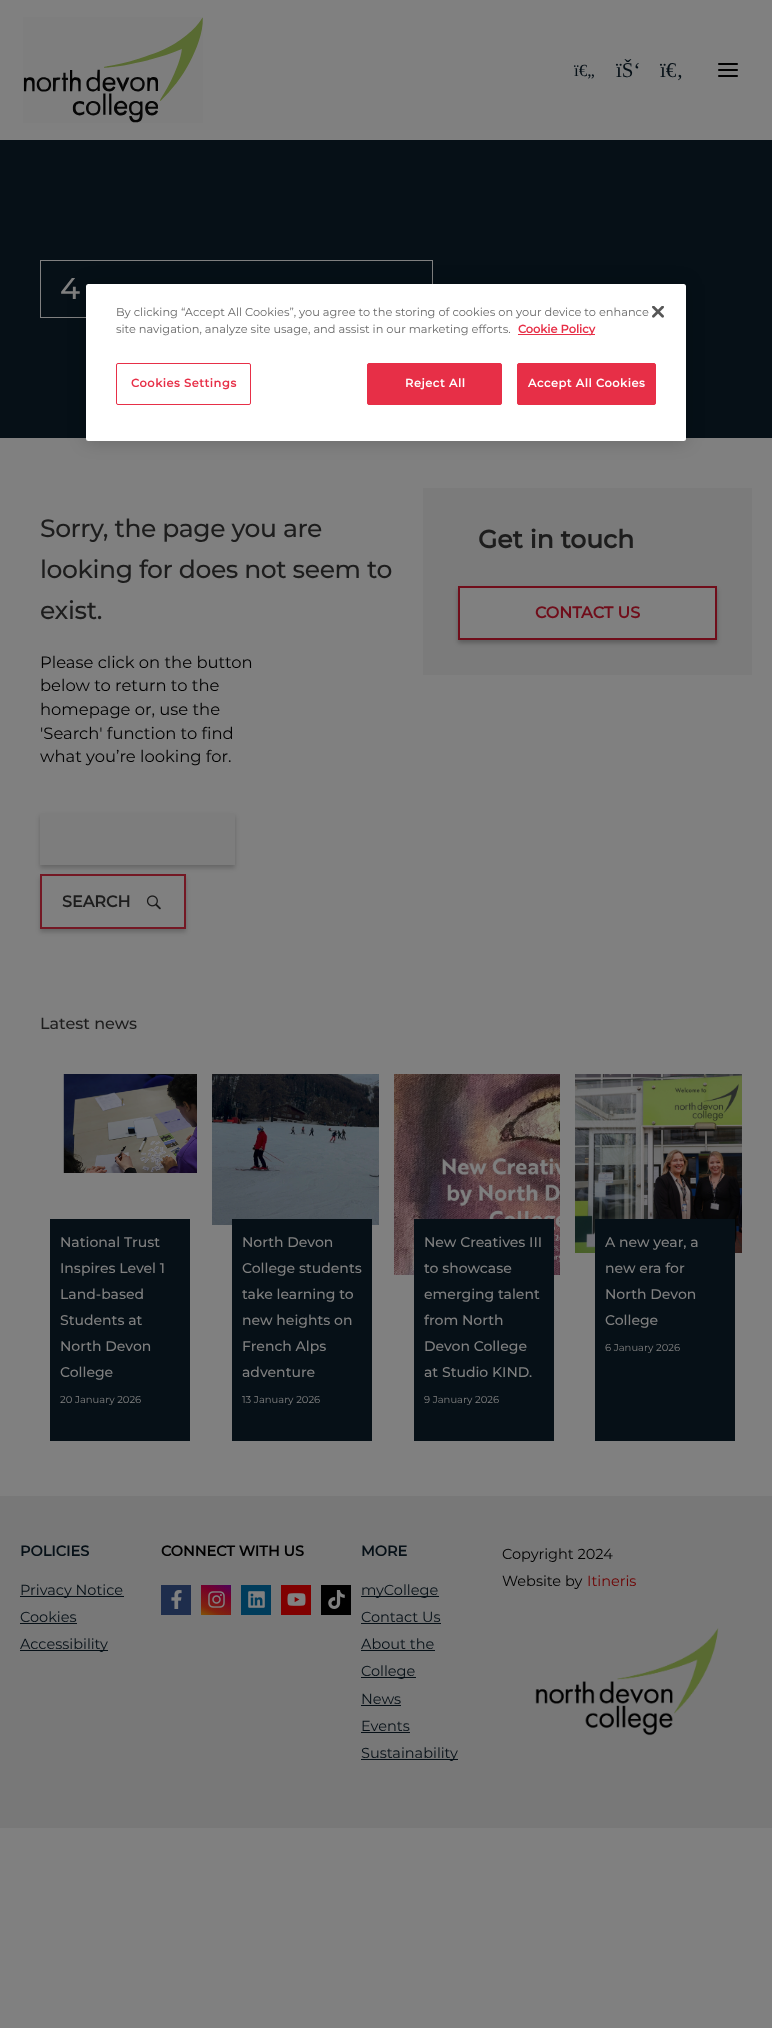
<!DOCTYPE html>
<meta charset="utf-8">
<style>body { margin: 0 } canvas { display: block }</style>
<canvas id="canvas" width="772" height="2028"></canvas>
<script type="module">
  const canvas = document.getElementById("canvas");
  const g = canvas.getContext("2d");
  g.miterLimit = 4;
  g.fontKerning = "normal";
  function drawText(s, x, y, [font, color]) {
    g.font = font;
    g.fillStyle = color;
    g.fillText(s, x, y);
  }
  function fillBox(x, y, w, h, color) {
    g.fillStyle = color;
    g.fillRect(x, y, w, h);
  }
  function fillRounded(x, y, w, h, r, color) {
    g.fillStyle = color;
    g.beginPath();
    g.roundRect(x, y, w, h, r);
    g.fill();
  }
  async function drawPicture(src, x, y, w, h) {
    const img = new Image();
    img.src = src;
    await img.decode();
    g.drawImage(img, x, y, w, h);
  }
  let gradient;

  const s1 = ["17px Liberation Serif", "#061017"];
  const s2 = ["21px Liberation Serif", "#061017"];
  const s3 = ["500 30px Montserrat", "#808080"];
  const s4 = ["500 25px Montserrat", "#1D1D1D"];
  const s5 = ["16.4px Montserrat", "#000000"];
  const s6 = ["bold 16px Montserrat", "#1D1D1D"];
  const s7 = ["bold 25px Montserrat", "#1D1D1D"];
  const s8 = ["bold 16px Montserrat", "#700D1A"];
  const s9 = ["500 16px Montserrat", "#1D1D1D"];
  const s10 = ["500 14px Montserrat", "#808080"];
  const s11 = ["10px Montserrat", "#808080"];
  const s12 = ["bold 14.5px Montserrat", "#061017"];
  const s13 = ["14.5px Montserrat", "#061017"];
  const s14 = ["bold 14.5px Montserrat", "#000000"];
  const s15 = ["14.5px Montserrat", "#000000"];
  const s16 = ["14.5px Montserrat", "#6E0000"];
  const s17 = ["11.4px Montserrat", "#696969"];
  const s18 = ["bold 11.4px Montserrat", "#E72F47"];
  const s19 = ["bold 11.4px Montserrat", "#FFFFFF"];

  fillBox(0, 0, 772, 2028, "#808080");
  await drawPicture("pic1.png", 23, 17, 180, 106);
  drawText("ï€„", 574, 76, s1);
  drawText("ïŠ‘", 616, 77, s2);
  drawText("ï€‚", 660, 77, s2);
  await drawPicture("pic2.png", 718, 63, 20, 14);
  fillBox(0, 140, 772, 298, "#061017");
  g.strokeStyle = "#808080";
  g.strokeRect(40.5, 260.5, 392, 57);
  drawText("4", 60, 299, s3);
  g.letterSpacing = "-0.4px";
  drawText("Sorry, the page you are", 40, 537, s4);
  drawText("looking for does not seem to", 40, 578, s4);
  drawText("exist.", 40, 619, s4);
  g.letterSpacing = "0px";
  drawText("Please click on the button", 40, 668, s5);
  drawText("below to return to the", 40, 691, s5);
  drawText("homepage or, use the", 40, 715, s5);
  drawText("'Search' function to find", 40, 739, s5);
  drawText("what you’re looking for.", 40, 762, s5);
  g.fillStyle = "rgba(0, 0, 0, 0.2)";
  g.filter = "blur(2px)";
  g.beginPath();
  g.rect(40, 816, 195, 52);
  g.fill();
  g.filter = "none";
  fillBox(40, 814, 195, 51, "#7D7D7D");
  g.save();
  g.beginPath();
  g.moveTo(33, 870);
  g.lineTo(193, 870);
  g.lineTo(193, 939);
  g.lineTo(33, 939);
  g.closePath();
  g.moveTo(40, 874);
  g.lineTo(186, 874);
  g.lineTo(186, 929);
  g.lineTo(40, 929);
  g.closePath();
  g.clip("evenodd");
  g.fillStyle = "rgba(0, 0, 0, 0.2)";
  g.filter = "blur(2px)";
  g.beginPath();
  g.rect(40, 877, 146, 55);
  g.fill();
  g.filter = "none";
  g.restore();
  g.strokeStyle = "#741824";
  g.lineWidth = 2;
  g.strokeRect(41, 875, 144, 53);
  drawText("SEARCH", 62, 907, s6);
  await drawPicture("pic3.png", 146, 895, 15, 15);
  fillBox(423, 488, 329, 187, "#7B7B7B");
  drawText("Get in touch", 478, 548, s7);
  g.fillStyle = "rgba(0, 0, 0, 0.24)";
  g.filter = "blur(2px)";
  g.beginPath();
  g.rect(458, 589, 259, 54);
  g.fill();
  g.filter = "none";
  g.fillStyle = "#808080";
  g.beginPath();
  g.rect(459, 587, 257, 52);
  g.fill();
  g.strokeStyle = "#700D1A";
  g.stroke();
  drawText("CONTACT US", 535, 618, s8);
  drawText("Latest news", 40, 1029, s9);
  await drawPicture("pic4.png", 63, 1074, 134, 99);
  fillBox(50, 1219, 140, 222, "#061017");
  drawText("National Trust", 60, 1247, s10);
  drawText("Inspires Level 1", 60, 1273, s10);
  drawText("Land-based", 60, 1299, s10);
  drawText("Students at", 60, 1325, s10);
  drawText("North Devon", 60, 1351, s10);
  drawText("College", 60, 1377, s10);
  drawText("20 January 2026", 60, 1403, s11);
  await drawPicture("pic5.png", 212, 1074, 167, 151);
  fillBox(232, 1219, 140, 222, "#061017");
  drawText("North Devon", 242, 1247, s10);
  drawText("College students", 242, 1273, s10);
  drawText("take learning to", 242, 1299, s10);
  drawText("new heights on", 242, 1325, s10);
  drawText("French Alps", 242, 1351, s10);
  drawText("adventure", 242, 1377, s10);
  drawText("13 January 2026", 242, 1403, s11);
  await drawPicture("pic6.png", 394, 1074, 166, 201);
  fillBox(414, 1219, 140, 222, "#061017");
  drawText("New Creatives III", 424, 1247, s10);
  drawText("to showcase", 424, 1273, s10);
  drawText("emerging talent", 424, 1299, s10);
  drawText("from North", 424, 1325, s10);
  drawText("Devon College", 424, 1351, s10);
  drawText("at Studio KIND.", 424, 1377, s10);
  drawText("9 January 2026", 424, 1403, s11);
  await drawPicture("pic7.png", 575, 1074, 167, 179);
  fillBox(595, 1219, 140, 222, "#061017");
  drawText("A new year, a", 605, 1247, s10);
  drawText("new era for", 605, 1273, s10);
  drawText("North Devon", 605, 1299, s10);
  drawText("College", 605, 1325, s10);
  drawText("6 January 2026", 605, 1351, s11);
  fillBox(0, 1496, 772, 332, "#787878");
  drawText("POLICIES", 20, 1556, s12);
  fillBox(20, 1596, 104, 1, "#061017");
  drawText("Privacy Notice", 20, 1595, s13);
  drawText("Cookies", 20, 1622, s13);
  fillBox(20, 1623, 57, 1, "#061017");
  fillBox(20, 1650, 88, 1, "#061017");
  drawText("Accessibility", 20, 1649, s13);
  drawText("CONNECT WITH US", 161, 1556, s14);
  fillBox(161, 1585, 30, 30, "#1E2D4C");
  await drawPicture("pic8.png", 171, 1590, 11, 19);
  gradient = g.createLinearGradient(224, 1582, 208, 1618);
  gradient.addColorStop(0, "#4C035A");
  gradient.addColorStop(0.32, "#750029");
  gradient.addColorStop(0.78, "#80230E");
  gradient.addColorStop(1, "#805509");
  g.fillStyle = gradient;
  g.fillRect(201, 1585, 30, 30);
  await drawPicture("pic9.png", 208, 1591, 17, 17);
  fillBox(241, 1585, 30, 30, "#003C5B");
  await drawPicture("pic10.png", 248, 1591, 17, 17);
  fillBox(281, 1585, 30, 30, "#800000");
  await drawPicture("pic11.png", 287, 1593, 19, 13);
  fillBox(321, 1585, 30, 30, "#000000");
  await drawPicture("pic12.png", 328, 1590, 17, 19);
  drawText("MORE", 361, 1556, s12);
  fillBox(361, 1596, 78, 1, "#061017");
  drawText("myCollege", 361, 1595, s13);
  drawText("Contact Us", 361, 1622, s13);
  fillBox(361, 1623, 80, 1, "#061017");
  drawText("About the", 361, 1649, s13);
  fillBox(361, 1650, 74, 1, "#061017");
  fillBox(361, 1677, 55, 1, "#061017");
  drawText("College", 361, 1676, s13);
  drawText("News", 361, 1704, s13);
  fillBox(361, 1705, 40, 1, "#061017");
  drawText("Events", 361, 1731, s13);
  fillBox(361, 1732, 49, 1, "#061017");
  fillBox(361, 1759, 97, 1, "#061017");
  drawText("Sustainability", 361, 1758, s13);
  drawText("Copyright 2024", 502, 1559, s15);
  drawText("Website by", 502, 1586, s15);
  drawText("Itineris", 587, 1586, s16);
  await drawPicture("pic13.png", 535, 1628, 184, 108);
  g.fillStyle = "rgba(0, 0, 0, 0.2)";
  g.filter = "blur(9px)";
  g.beginPath();
  g.roundRect(86, 284, 600, 157, 2.5);
  g.fill();
  g.filter = "none";
  fillRounded(86, 284, 600, 157, 2.5, "#FFFFFF");
  drawText("By clicking “Accept All Cookies”, you agree to the storing of cookies on your device to enhance", 116, 316, s17);
  drawText("site navigation, analyze site usage, and assist in our marketing efforts.", 116, 333, s17);
  fillBox(518, 334, 77, 1, "#E72F47");
  drawText("Cookie Policy", 518, 333, s18);
  await drawPicture("pic14.png", 652, 306, 12, 12);
  g.beginPath();
  g.roundRect(116.5, 363.5, 134, 41, 1.5);
  g.strokeStyle = "#E72F47";
  g.lineWidth = 1;
  g.stroke();
  g.letterSpacing = "0.6px";
  drawText("Cookies Settings", 131, 387, s18);
  g.beginPath();
  g.roundRect(367.5, 363.5, 134, 41, 1.5);
  g.fill();
  g.stroke();
  drawText("Reject All", 405, 387, s19);
  g.fillStyle = "#E72F47";
  g.beginPath();
  g.roundRect(517.5, 363.5, 138, 41, 1.5);
  g.fill();
  g.stroke();
  drawText("Accept All Cookies", 528, 387, s19);
</script>
